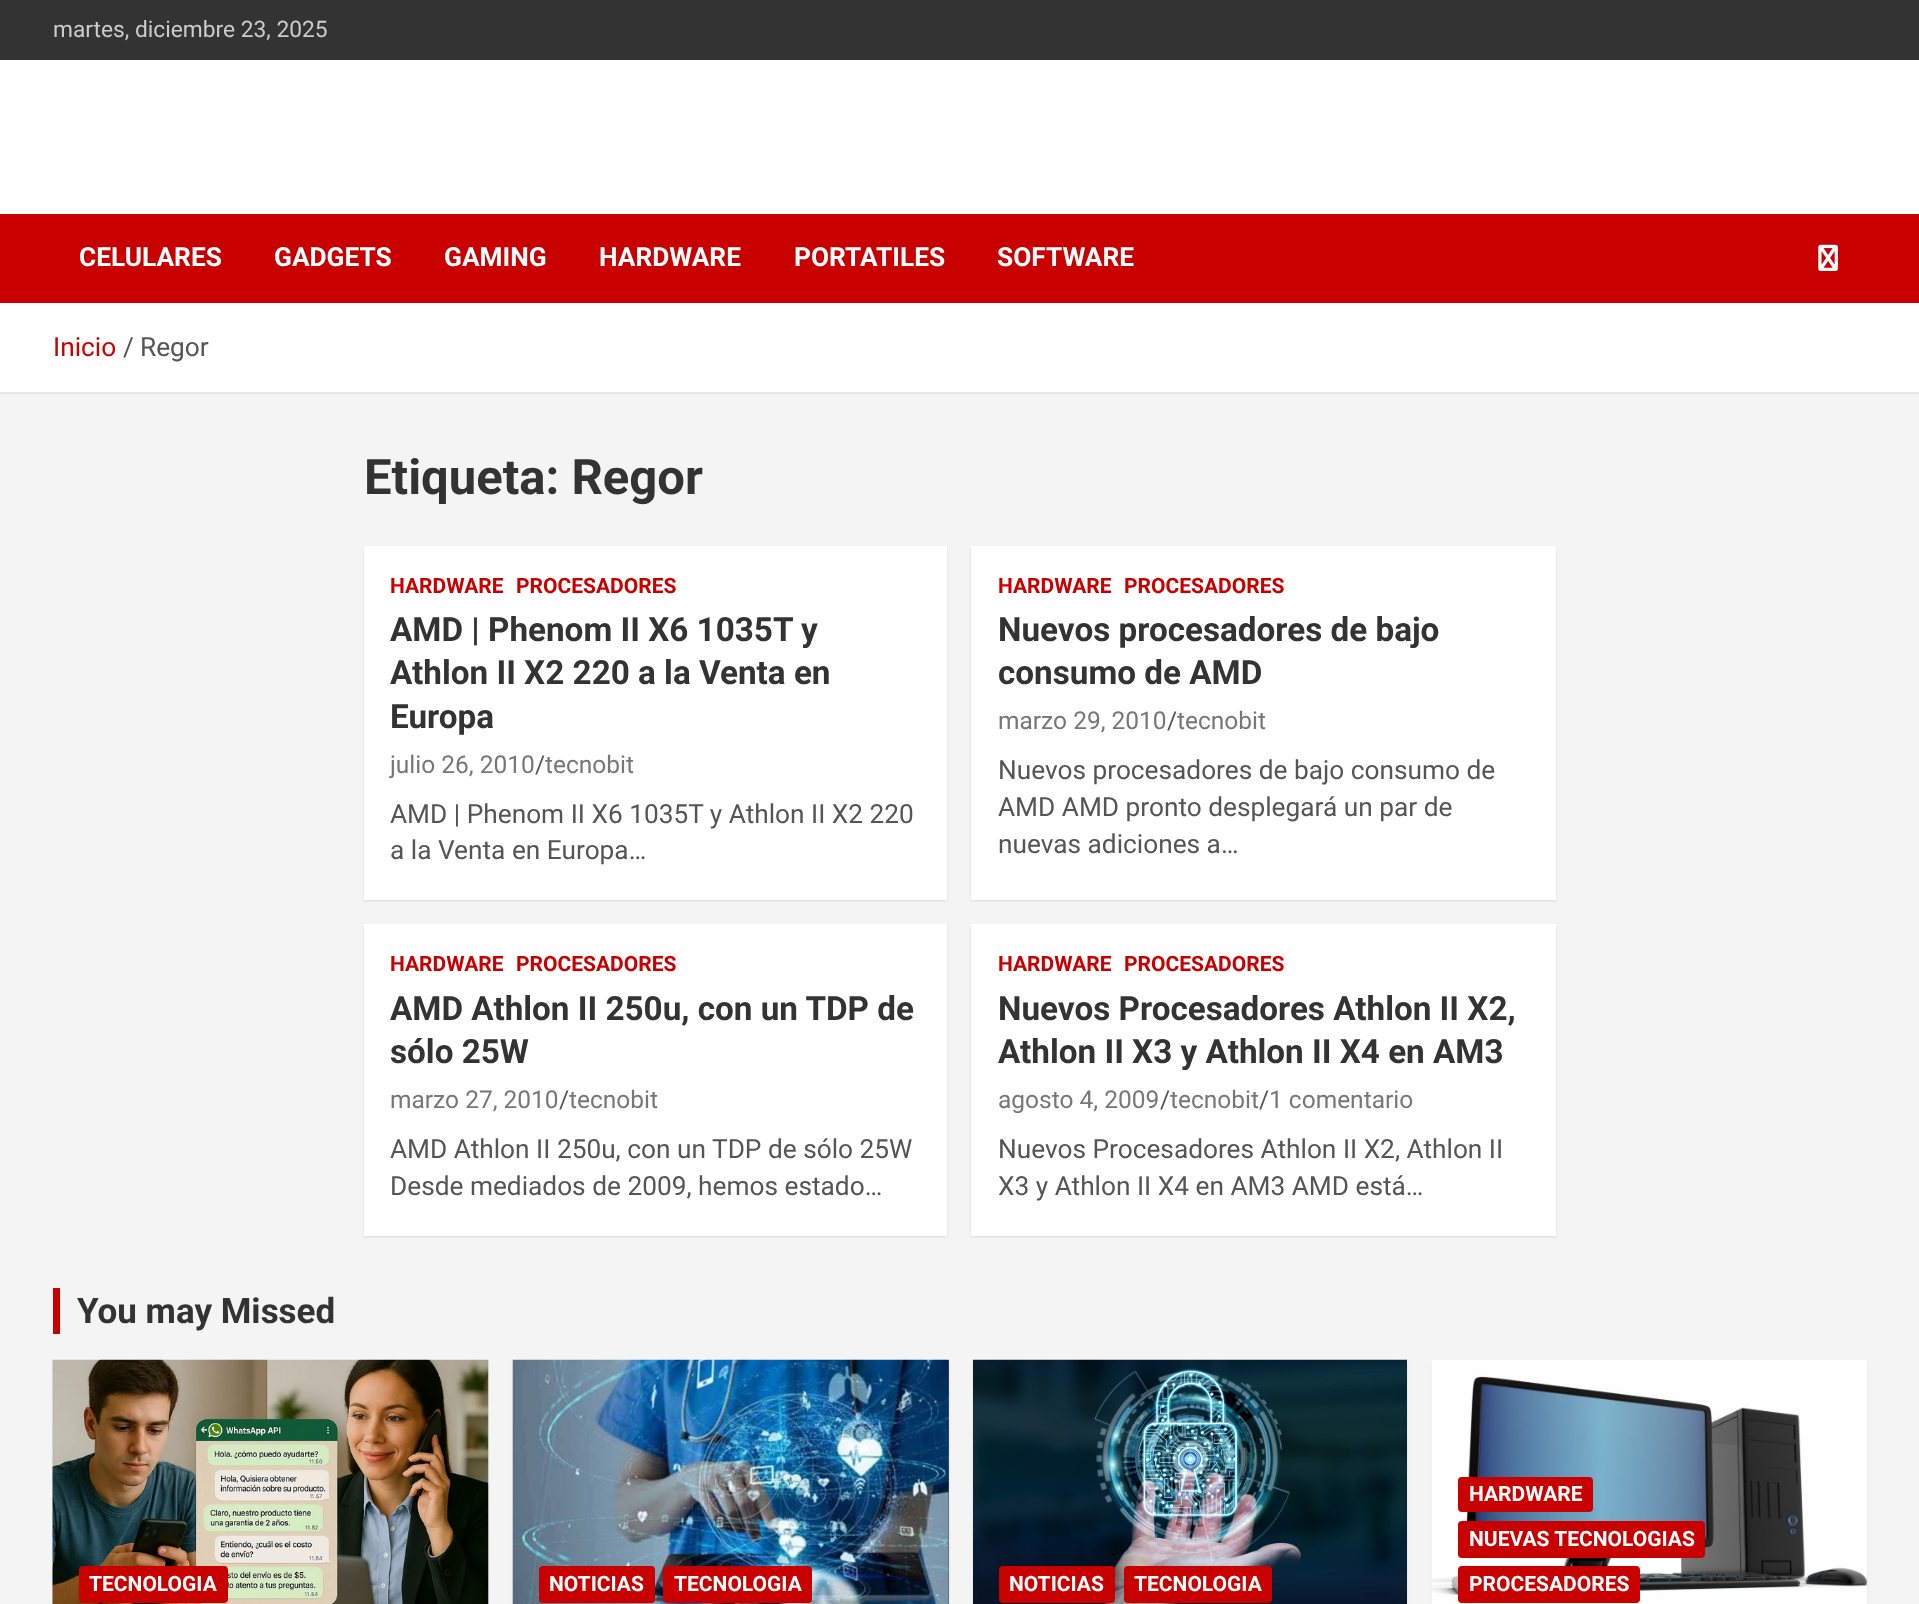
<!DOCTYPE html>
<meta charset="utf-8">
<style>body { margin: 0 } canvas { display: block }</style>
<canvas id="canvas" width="1919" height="1604"></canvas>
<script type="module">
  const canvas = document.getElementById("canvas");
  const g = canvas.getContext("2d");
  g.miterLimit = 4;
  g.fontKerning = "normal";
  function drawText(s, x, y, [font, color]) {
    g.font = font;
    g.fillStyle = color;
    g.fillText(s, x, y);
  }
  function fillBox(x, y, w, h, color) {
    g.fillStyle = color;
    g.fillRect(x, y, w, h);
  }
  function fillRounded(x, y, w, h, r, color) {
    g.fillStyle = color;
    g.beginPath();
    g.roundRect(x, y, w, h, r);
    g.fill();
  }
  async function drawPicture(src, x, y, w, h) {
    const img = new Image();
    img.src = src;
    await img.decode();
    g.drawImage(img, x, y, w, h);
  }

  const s1 = ["22.75px Roboto", "#CCCCCC"];
  const s2 = ["bold 26.25px Roboto", "#FFFFFF"];
  const s3 = ["26.25px Roboto", "#C80000"];
  const s4 = ["26.25px Roboto", "#555555"];
  const s5 = ["bold 49px Roboto", "#333333"];
  const s6 = ["bold 21px Roboto", "#C80000"];
  const s7 = ["bold 33.25px Roboto", "#333333"];
  const s8 = ["24.5px Roboto", "#777777"];
  const s9 = ["24.5px Roboto", "#555555"];
  const s10 = ["bold 35px Roboto", "#333333"];
  const s11 = ["bold 21px Roboto", "#FFFFFF"];

  fillBox(0, 0, 1919, 1604, "#F4F4F4");
  fillBox(0, 0, 1919, 60, "#333333");
  drawText("martes, diciembre 23, 2025", 53, 37, s1);
  fillBox(0, 60, 1919, 154, "#FFFFFF");
  fillBox(0, 214, 1919, 89, "#C80000");
  drawText("CELULARES", 79, 266, s2);
  drawText("GADGETS", 274, 266, s2);
  drawText("GAMING", 444, 266, s2);
  drawText("HARDWARE", 599, 266, s2);
  drawText("PORTATILES", 794, 266, s2);
  drawText("SOFTWARE", 997, 266, s2);
  await drawPicture("pic1.png", 1818, 244, 20, 27);
  fillBox(0, 303, 1919, 89, "#FFFFFF");
  fillBox(0, 392, 1919, 2, "#E6E6E6");
  drawText("Inicio", 53, 356, s3);
  drawText("/", 123, 356, s4);
  drawText("Regor", 140, 356, s4);
  drawText("Etiqueta: Regor", 364, 494, s5);
  g.fillStyle = "rgba(0, 0, 0, 0.1)";
  g.filter = "blur(1px)";
  g.beginPath();
  g.rect(364, 548, 583, 353);
  g.fill();
  g.filter = "none";
  fillBox(364, 546, 583, 354, "#FFFFFF");
  drawText("HARDWARE", 390, 593, s6);
  drawText("PROCESADORES", 516, 593, s6);
  drawText("AMD | Phenom II X6 1035T y", 390, 641, s7);
  drawText("Athlon II X2 220 a la Venta en", 390, 684, s7);
  drawText("Europa", 390, 728, s7);
  drawText("julio 26, 2010", 390, 773, s8);
  drawText("/", 535, 773, s9);
  drawText("tecnobit", 545, 773, s8);
  drawText("AMD | Phenom II X6 1035T y Athlon II X2 220", 390, 823, s4);
  drawText("a la Venta en Europa…", 390, 859, s4);
  g.fillStyle = "rgba(0, 0, 0, 0.1)";
  g.filter = "blur(1px)";
  g.beginPath();
  g.rect(971, 548, 585, 353);
  g.fill();
  g.filter = "none";
  fillBox(971, 546, 585, 354, "#FFFFFF");
  drawText("HARDWARE", 998, 593, s6);
  drawText("PROCESADORES", 1124, 593, s6);
  drawText("Nuevos procesadores de bajo", 998, 641, s7);
  drawText("consumo de AMD", 998, 684, s7);
  drawText("marzo 29, 2010", 998, 729, s8);
  drawText("/", 1167, 729, s9);
  drawText("tecnobit", 1177, 729, s8);
  drawText("Nuevos procesadores de bajo consumo de", 998, 779, s4);
  drawText("AMD AMD pronto desplegará un par de", 998, 816, s4);
  drawText("nuevas adiciones a…", 998, 853, s4);
  g.fillStyle = "rgba(0, 0, 0, 0.1)";
  g.filter = "blur(1px)";
  g.beginPath();
  g.rect(364, 926, 583, 311);
  g.fill();
  g.filter = "none";
  fillBox(364, 924, 583, 312, "#FFFFFF");
  drawText("HARDWARE", 390, 971, s6);
  drawText("PROCESADORES", 516, 971, s6);
  drawText("AMD Athlon II 250u, con un TDP de", 390, 1020, s7);
  drawText("sólo 25W", 390, 1063, s7);
  drawText("marzo 27, 2010", 390, 1108, s8);
  drawText("/", 559, 1108, s9);
  drawText("tecnobit", 569, 1108, s8);
  drawText("AMD Athlon II 250u, con un TDP de sólo 25W", 390, 1158, s4);
  drawText("Desde mediados de 2009, hemos estado…", 390, 1195, s4);
  g.fillStyle = "rgba(0, 0, 0, 0.1)";
  g.filter = "blur(1px)";
  g.beginPath();
  g.rect(971, 926, 585, 311);
  g.fill();
  g.filter = "none";
  fillBox(971, 924, 585, 312, "#FFFFFF");
  drawText("HARDWARE", 998, 971, s6);
  drawText("PROCESADORES", 1124, 971, s6);
  drawText("Nuevos Procesadores Athlon II X2,", 998, 1020, s7);
  drawText("Athlon II X3 y Athlon II X4 en AM3", 998, 1063, s7);
  drawText("agosto 4, 2009", 998, 1108, s8);
  drawText("/", 1160, 1108, s9);
  drawText("tecnobit", 1170, 1108, s8);
  drawText("/", 1259, 1108, s9);
  drawText("1 comentario", 1269, 1108, s8);
  drawText("Nuevos Procesadores Athlon II X2, Athlon II", 998, 1158, s4);
  drawText("X3 y Athlon II X4 en AM3 AMD está…", 998, 1195, s4);
  fillBox(53, 1288, 7, 46, "#C80000");
  drawText("You may Missed", 77, 1323, s10);
  g.fillStyle = "rgba(0, 0, 0, 0.1)";
  g.filter = "blur(1px)";
  g.beginPath();
  g.rect(53, 1362, 435, 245);
  g.fill();
  g.filter = "none";
  await drawPicture("pic2.png", 52, 1359, 437, 245);
  fillRounded(79, 1566, 149, 37, 4, "#C80000");
  drawText("TECNOLOGIA", 89, 1591, s11);
  g.fillStyle = "rgba(0, 0, 0, 0.1)";
  g.filter = "blur(1px)";
  g.beginPath();
  g.rect(513, 1362, 436, 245);
  g.fill();
  g.filter = "none";
  fillBox(948, 1360, 1, 244, "#555555");
  await drawPicture("pic3.png", 512, 1359, 437, 245);
  fillRounded(539, 1566, 116, 37, 4, "#C80000");
  drawText("NOTICIAS", 549, 1591, s11);
  fillRounded(663, 1566, 149, 37, 4, "#C80000");
  drawText("TECNOLOGIA", 674, 1591, s11);
  g.fillStyle = "rgba(0, 0, 0, 0.1)";
  g.filter = "blur(1px)";
  g.beginPath();
  g.rect(973, 1362, 434, 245);
  g.fill();
  g.filter = "none";
  await drawPicture("pic4.png", 973, 1359, 434, 245);
  fillRounded(999, 1566, 116, 37, 4, "#C80000");
  drawText("NOTICIAS", 1009, 1591, s11);
  fillRounded(1124, 1566, 148, 37, 4, "#C80000");
  drawText("TECNOLOGIA", 1134, 1591, s11);
  g.fillStyle = "rgba(0, 0, 0, 0.1)";
  g.filter = "blur(1px)";
  g.beginPath();
  g.rect(1432, 1362, 435, 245);
  g.fill();
  g.filter = "none";
  await drawPicture("pic5.png", 1431, 1360, 437, 244);
  fillRounded(1458, 1477, 135, 35, 4, "#C80000");
  drawText("HARDWARE", 1469, 1501, s11);
  fillRounded(1458, 1521, 247, 37, 4, "#C80000");
  drawText("NUEVAS TECNOLOGIAS", 1469, 1546, s11);
  fillRounded(1458, 1566, 182, 37, 4, "#C80000");
  drawText("PROCESADORES", 1469, 1591, s11);
</script>
